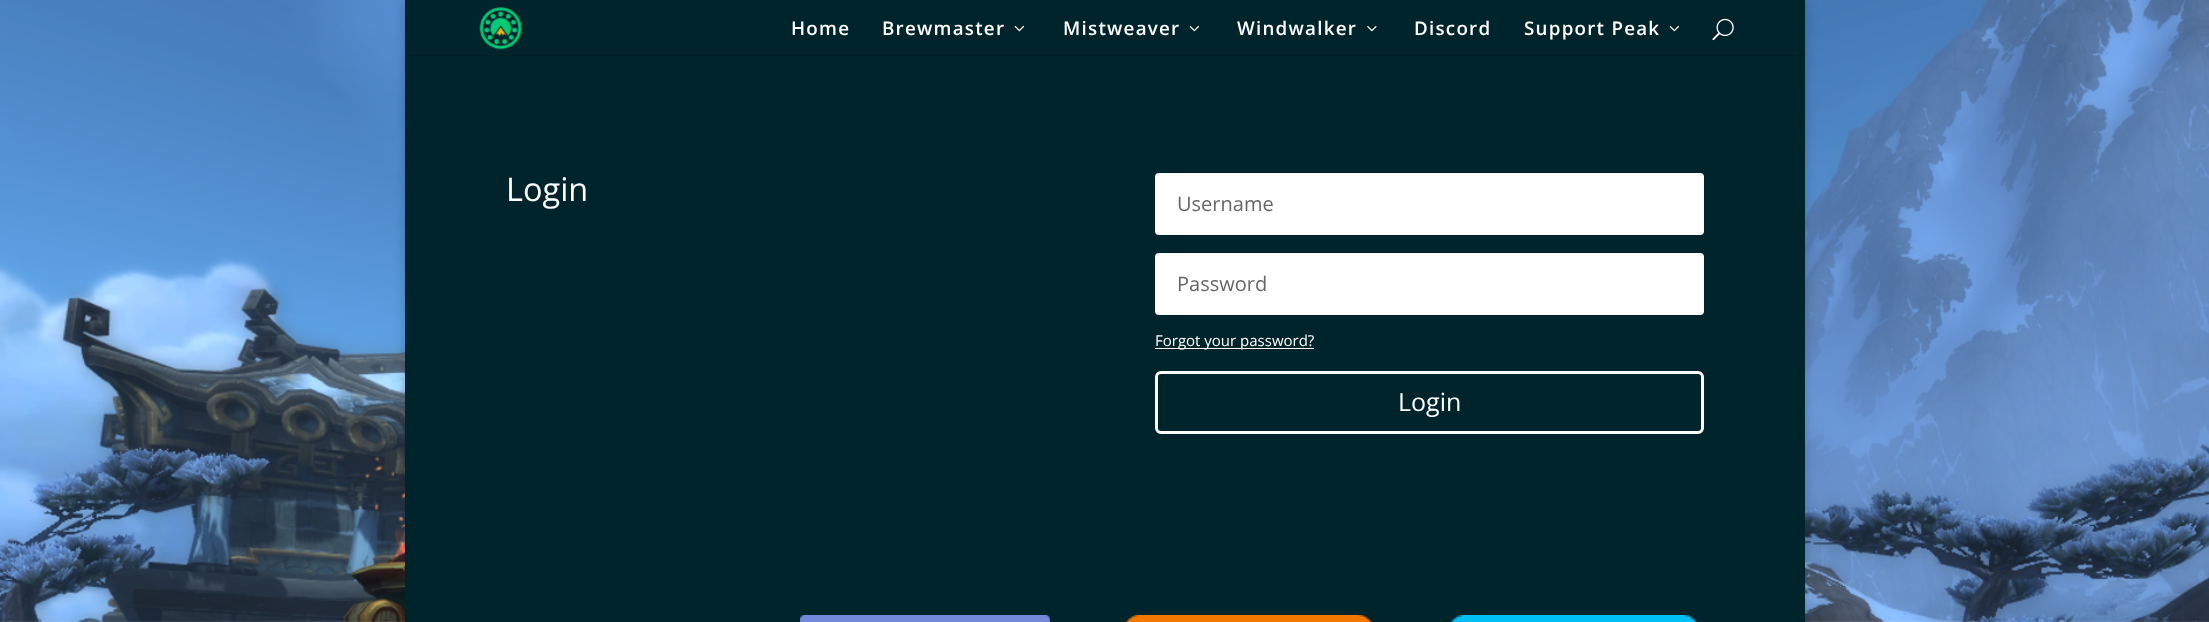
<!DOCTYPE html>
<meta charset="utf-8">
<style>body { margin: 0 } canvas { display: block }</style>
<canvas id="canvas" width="2209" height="622"></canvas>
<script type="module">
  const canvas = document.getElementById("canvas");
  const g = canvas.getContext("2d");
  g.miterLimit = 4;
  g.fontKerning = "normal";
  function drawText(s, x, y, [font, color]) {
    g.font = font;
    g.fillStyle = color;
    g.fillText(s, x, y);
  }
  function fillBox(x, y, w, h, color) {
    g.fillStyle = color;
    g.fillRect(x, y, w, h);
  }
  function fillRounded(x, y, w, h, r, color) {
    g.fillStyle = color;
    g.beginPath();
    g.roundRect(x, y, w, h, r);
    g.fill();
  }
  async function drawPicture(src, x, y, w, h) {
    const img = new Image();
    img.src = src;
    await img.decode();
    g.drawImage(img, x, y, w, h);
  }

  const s1 = ["600 18.75px Open Sans", "#FFFFFF"];
  const s2 = ["32.5px Open Sans", "#FFFFFF"];
  const s3 = ["20px Open Sans", "#666666"];
  const s4 = ["15px Open Sans", "#FFFFFF"];
  const s5 = ["25px Open Sans", "#FFFFFF"];

  fillBox(0, 0, 2209, 622, "#FFFFFF");
  await drawPicture("pic1.png", 0, 0, 2209, 622);
  g.fillStyle = "rgba(0, 0, 0, 0.2)";
  g.filter = "blur(6px)";
  g.beginPath();
  g.rect(405, -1, 1400, 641);
  g.fill();
  g.filter = "none";
  fillBox(405, 0, 1400, 622, "#00242C");
  fillBox(405, 55, 1400, 1, "#002028");
  await drawPicture("pic2.png", 479, 7, 43, 43);
  g.letterSpacing = "1.25px";
  drawText("Home", 791, 35, s1);
  drawText("Brewmaster", 882, 35, s1);
  await drawPicture("pic3.png", 1014, 26, 10, 6);
  drawText("Mistweaver", 1063, 35, s1);
  await drawPicture("pic3.png", 1189, 26, 10, 6);
  drawText("Windwalker", 1237, 35, s1);
  await drawPicture("pic4.png", 1367, 26, 10, 6);
  drawText("Discord", 1414, 35, s1);
  drawText("Support Peak", 1524, 35, s1);
  await drawPicture("pic3.png", 1669, 26, 10, 6);
  await drawPicture("pic5.png", 1712, 18, 22, 23);
  g.letterSpacing = "0px";
  drawText("Login", 506, 201, s2);
  fillRounded(1155, 173, 549, 62, 4, "#FFFFFF");
  drawText("Username", 1177, 211, s3);
  fillRounded(1155, 253, 549, 62, 4, "#FFFFFF");
  drawText("Password", 1177, 291, s3);
  fillBox(1155, 348, 159, 1, "#FFFFFF");
  drawText("Forgot your password?", 1155, 346, s4);
  g.beginPath();
  g.roundRect(1156.5, 372.5, 546, 60, 4.5);
  g.strokeStyle = "#FFFFFF";
  g.lineWidth = 3;
  g.stroke();
  drawText("Login", 1398, 411, s5);
  await drawPicture("pic6.png", 800, 615, 250, 7);
  await drawPicture("pic7.png", 1125, 615, 248, 7);
  await drawPicture("pic8.png", 1450, 615, 248, 7);
</script>
